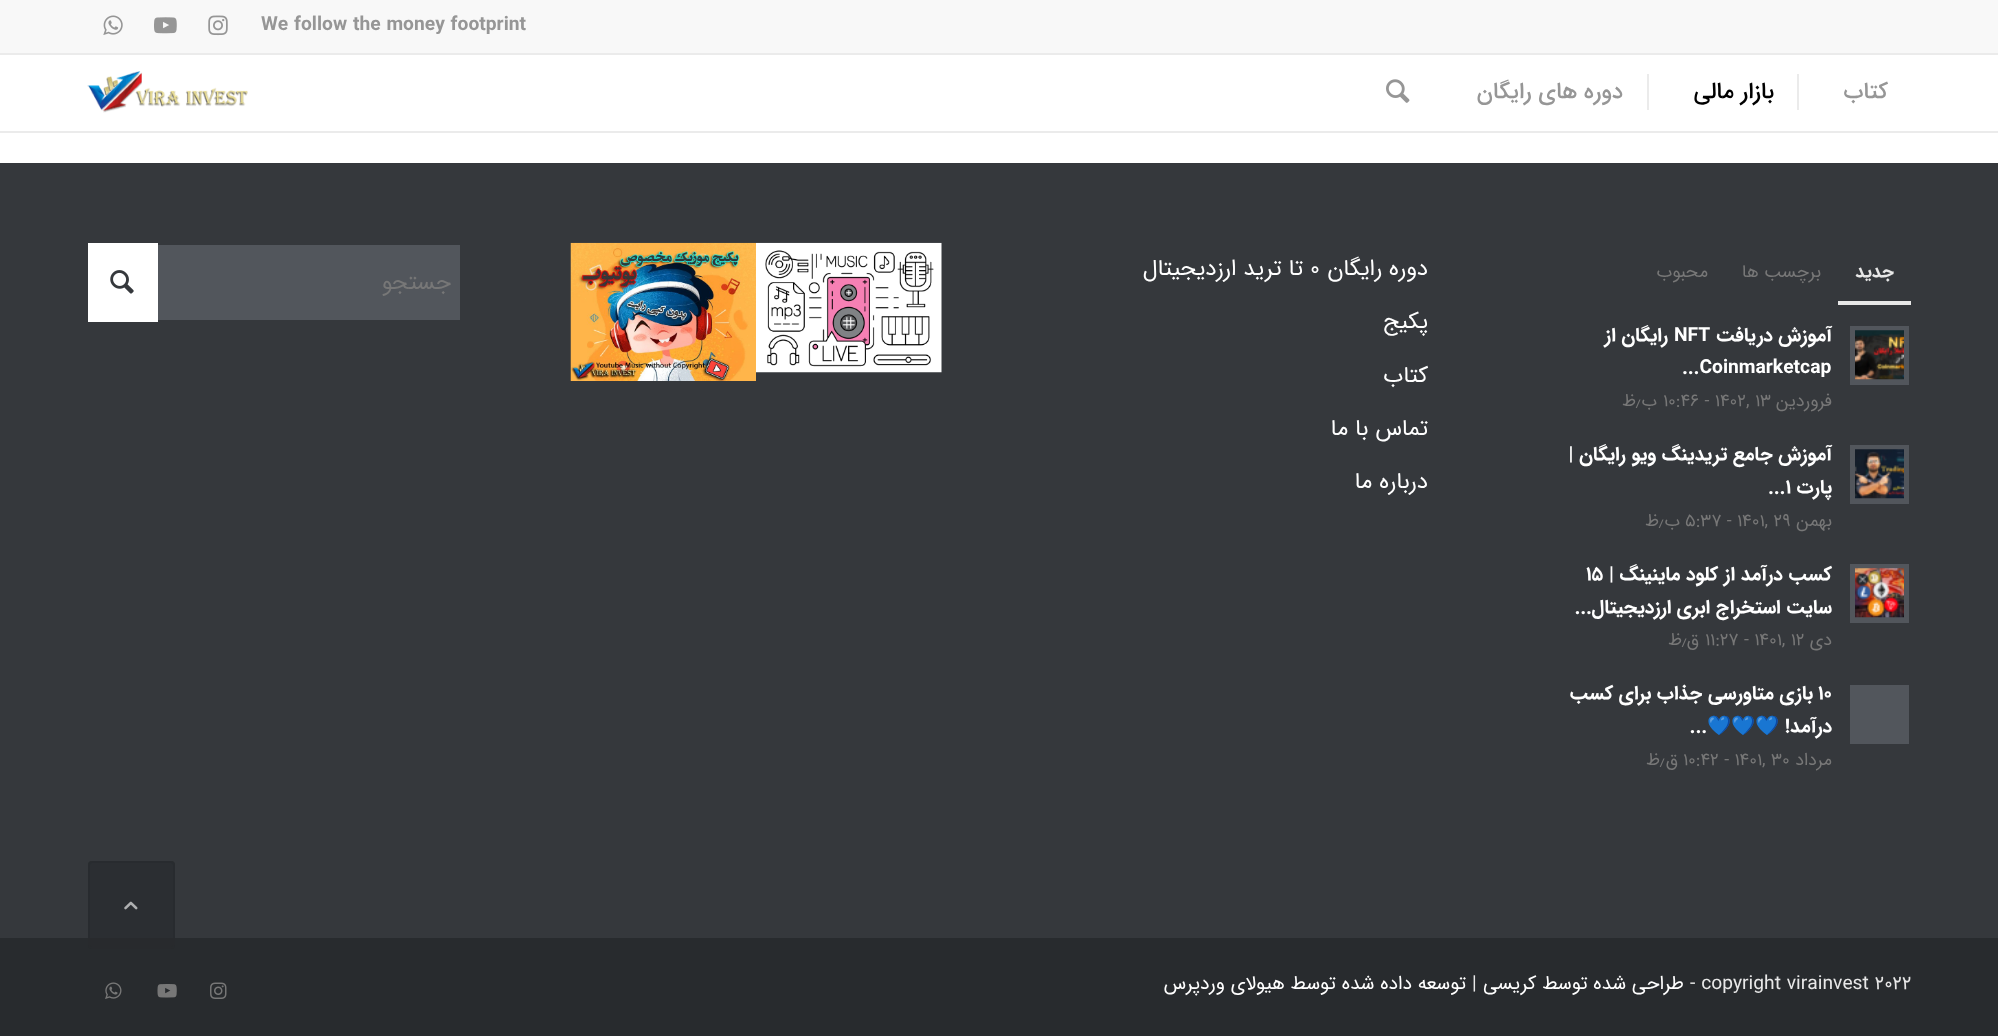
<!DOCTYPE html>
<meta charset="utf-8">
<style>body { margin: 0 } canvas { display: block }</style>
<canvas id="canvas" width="1998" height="1036"></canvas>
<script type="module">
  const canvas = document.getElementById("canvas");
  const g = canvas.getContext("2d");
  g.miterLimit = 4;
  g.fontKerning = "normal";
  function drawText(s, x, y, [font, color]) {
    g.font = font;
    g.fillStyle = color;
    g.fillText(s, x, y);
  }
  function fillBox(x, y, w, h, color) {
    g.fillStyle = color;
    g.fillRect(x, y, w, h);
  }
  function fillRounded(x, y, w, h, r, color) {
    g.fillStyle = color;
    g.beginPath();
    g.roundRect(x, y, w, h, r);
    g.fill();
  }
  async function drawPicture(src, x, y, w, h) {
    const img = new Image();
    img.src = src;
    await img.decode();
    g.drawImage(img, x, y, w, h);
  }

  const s1 = ["bold 19.25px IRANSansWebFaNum", "#969696"];
  const s2 = ["500 22.75px IRANSansWebFaNum", "#969696"];
  const s3 = ["500 22.75px IRANSansWebFaNum", "#000000"];
  const s4 = ["bold 18px IRANSansWebFaNum", "#E8E8E8"];
  const s5 = ["18px IRANSansWebFaNum", "#777777"];
  const s6 = ["bold 19.3px IRANSansWebFaNum", "#FFFFFF"];
  const s7 = ["17.75px IRANSansWebFaNum", "#777777"];
  const s8 = ["bold 19.3px Noto Color Emoji", "#FFFFFF"];
  const s9 = ["22.75px IRANSansWebFaNum", "#FFFFFF"];
  const s10 = ["22.75px IRANSansWebFaNum", "#777777"];
  const s11 = ["19.25px IRANSansWebFaNum", "#E8E8E8"];
  const s12 = ["19.25px IRANSansWebFaNum", "#FFFFFF"];

  fillBox(0, 0, 1998, 1036, "#FFFFFF");
  fillBox(0, 0, 1998, 53, "#F8F8F8");
  fillBox(0, 53, 1998, 2, "#EBEBEB");
  drawText("We follow the money footprint", 261, 30, s1);
  await drawPicture("pic1.png", 208, 15, 20, 21);
  await drawPicture("pic2.png", 154, 17, 23, 17);
  await drawPicture("pic3.png", 103, 15, 20, 20);
  fillBox(0, 131, 1998, 2, "#EBEBEB");
  g.direction = "rtl";
  drawText("کتاب", 1888, 98, s2);
  drawText("بازار مالی", 1774, 98, s3);
  fillBox(1797, 74, 2, 36, "#EBEBEB");
  drawText("دوره های رایگان", 1623, 98, s2);
  fillBox(1647, 74, 2, 36, "#EBEBEB");
  await drawPicture("pic4.png", 1386, 79, 24, 24);
  await drawPicture("pic5.png", 87, 71, 161, 42);
  fillBox(0, 163, 1998, 775, "#35383C");
  fillBox(1838, 301, 73, 4, "#E8E8E8");
  drawText("جدید", 1894, 277, s4);
  drawText("برچسب ها", 1821, 277, s5);
  drawText("محبوب", 1708, 277, s5);
  fillBox(1850, 326, 59, 59, "#52565C");
  await drawPicture("pic6.png", 1855, 330, 49, 50);
  drawText("آموزش دریافت", 1832, 341, s6);
  g.direction = "ltr";
  drawText("NFT", 1674, 341, s6);
  g.direction = "rtl";
  drawText("رایگان از", 1668, 341, s6);
  g.direction = "ltr";
  drawText("...Coinmarketcap", 1682, 373, s6);
  g.direction = "rtl";
  drawText("فروردین", 1832, 406, s7);
  g.direction = "ltr";
  drawText("۱۰:۴۶ - ۱۴۰۲, ۱۳", 1663, 406, s7);
  g.direction = "rtl";
  drawText("ب", 1657, 406, s7);
  g.direction = "ltr";
  drawText("٫", 1636, 406, s7);
  g.direction = "rtl";
  drawText("ظ", 1636, 406, s7);
  fillBox(1850, 445, 59, 59, "#52565C");
  await drawPicture("pic7.png", 1855, 449, 49, 50);
  drawText("آموزش جامع تریدینگ ویو رایگان |", 1832, 460, s6);
  drawText("پارت", 1832, 493, s6);
  g.direction = "ltr";
  drawText("...1", 1768, 493, s6);
  g.direction = "rtl";
  drawText("بهمن", 1832, 526, s7);
  g.direction = "ltr";
  drawText("۵:۳۷ - ۱۴۰۱, ۲۹", 1685, 526, s7);
  g.direction = "rtl";
  drawText("ب", 1680, 526, s7);
  drawText("ظ", 1659, 526, s7);
  g.direction = "ltr";
  drawText("٫", 1659, 526, s7);
  fillBox(1850, 564, 59, 59, "#52565C");
  await drawPicture("pic8.png", 1855, 568, 49, 50);
  g.direction = "rtl";
  drawText("کسب درآمد از کلود ماینینگ |", 1832, 580, s6);
  g.direction = "ltr";
  drawText("15", 1586, 580, s6);
  g.direction = "rtl";
  drawText("سایت استخراج ابری ارزدیجیتال...", 1832, 613, s6);
  drawText("دی", 1832, 645, s7);
  g.direction = "ltr";
  drawText("۱۱:۲۷ - ۱۴۰۱, ۱۲", 1705, 645, s7);
  g.direction = "rtl";
  drawText("ق", 1699, 645, s7);
  g.direction = "ltr";
  drawText("٫", 1682, 645, s7);
  g.direction = "rtl";
  drawText("ظ", 1682, 645, s7);
  fillBox(1850, 685, 59, 59, "#52565C");
  g.direction = "ltr";
  drawText("10", 1818, 699, s6);
  g.direction = "rtl";
  drawText("بازی متاورسی جذاب برای کسب", 1813, 699, s6);
  drawText("درآمد!", 1832, 732, s6);
  drawText("💙💙💙", 1779, 732, s8);
  drawText("...", 1707, 732, s6);
  drawText("مرداد", 1832, 765, s7);
  g.direction = "ltr";
  drawText("۱۰:۴۲ - ۱۴۰۱, ۳۰", 1683, 765, s7);
  g.direction = "rtl";
  drawText("ق", 1678, 765, s7);
  drawText("ظ", 1660, 765, s7);
  g.direction = "ltr";
  drawText("٫", 1660, 765, s7);
  g.direction = "rtl";
  drawText("دوره رایگان", 1428, 275, s9);
  g.direction = "ltr";
  drawText("0", 1310, 275, s9);
  g.direction = "rtl";
  drawText("تا ترید ارزدیجیتال", 1303, 275, s9);
  drawText("پکیج", 1428, 328, s9);
  drawText("کتاب", 1428, 382, s9);
  drawText("تماس با ما", 1428, 435, s9);
  drawText("درباره ما", 1428, 488, s9);
  await drawPicture("pic9.png", 756, 242, 186, 131);
  await drawPicture("pic10.png", 570, 242, 186, 139);
  fillBox(158, 245, 302, 75, "#52565C");
  drawText("جستجو", 451, 289, s10);
  fillBox(88, 243, 70, 79, "#FFFFFF");
  await drawPicture("pic11.png", 110, 270, 24, 24);
  fillBox(0, 938, 1998, 98, "#282B2E");
  g.direction = "ltr";
  drawText("- copyright virainvest 2022", 1690, 989, s11);
  g.direction = "rtl";
  drawText("طراحی شده توسط کریسی", 1684, 989, s12);
  g.direction = "ltr";
  drawText("|", 1472, 989, s11);
  g.direction = "rtl";
  drawText("توسعه داده شده توسط هیولای وردپرس", 1466, 989, s12);
  await drawPicture("pic12.png", 210, 982, 17, 17);
  await drawPicture("pic13.png", 157, 984, 20, 14);
  await drawPicture("pic14.png", 105, 982, 17, 17);
  fillRounded(88, 861, 87, 88, 4, "rgba(40, 43, 46, 0.7)");
  g.beginPath();
  g.roundRect(89, 862, 85, 86, 3);
  g.strokeStyle = "rgba(40, 43, 46, 0.7)";
  g.lineWidth = 2;
  g.stroke();
  await drawPicture("pic15.png", 124, 901, 14, 9);
</script>
